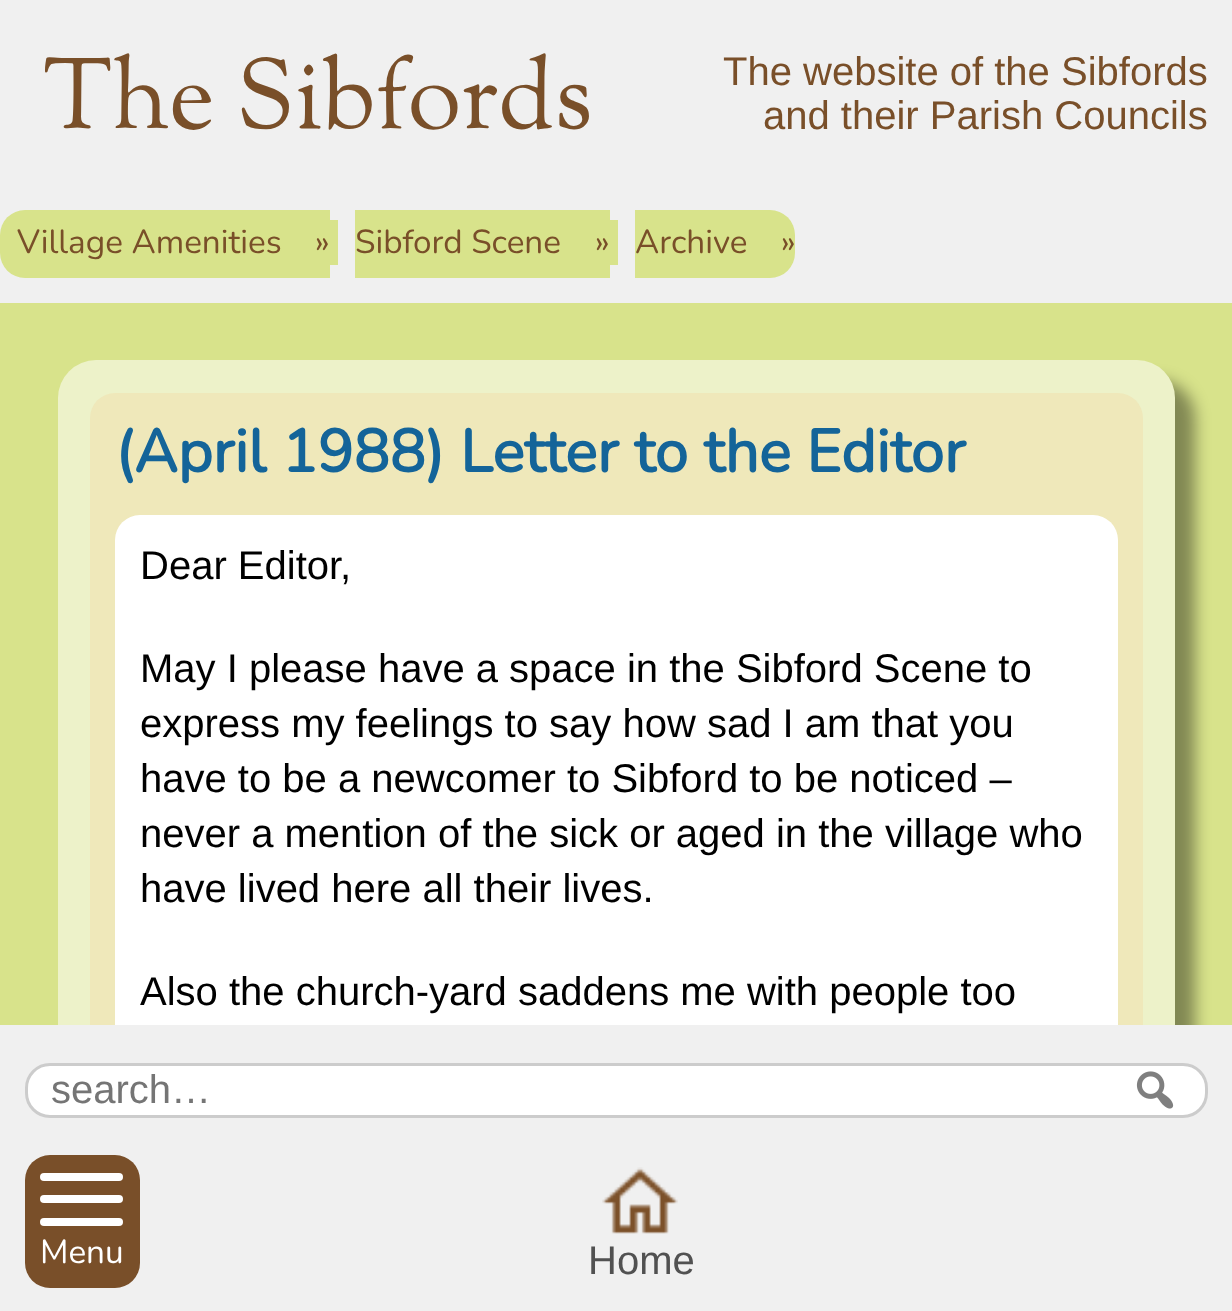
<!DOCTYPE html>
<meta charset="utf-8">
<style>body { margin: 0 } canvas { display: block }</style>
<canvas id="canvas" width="1232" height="1311"></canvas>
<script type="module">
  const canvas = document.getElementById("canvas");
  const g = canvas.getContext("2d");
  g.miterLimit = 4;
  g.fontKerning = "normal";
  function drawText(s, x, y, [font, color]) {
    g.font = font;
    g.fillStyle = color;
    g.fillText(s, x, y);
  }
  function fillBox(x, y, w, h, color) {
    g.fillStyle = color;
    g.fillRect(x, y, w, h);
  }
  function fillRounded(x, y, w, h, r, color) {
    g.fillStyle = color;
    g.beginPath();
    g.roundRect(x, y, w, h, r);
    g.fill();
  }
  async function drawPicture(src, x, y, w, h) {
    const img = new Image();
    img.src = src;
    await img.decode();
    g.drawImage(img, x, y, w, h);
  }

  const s1 = ["98.5px Sorts Mill Goudy", "#794F29"];
  const s2 = ["40px Liberation Sans", "#794F29"];
  const s3 = ["200 33.25px Nunito", "#794F29"];
  const s4 = ["bold 60px Nunito", "#146499"];
  const s5 = ["40px Liberation Sans", "#000000"];
  const s6 = ["40px Liberation Sans", "#757575"];
  const s7 = ["200 33.25px Nunito", "#FFFFFF"];
  const s8 = ["40px Liberation Sans", "#515151"];

  fillBox(0, 0, 1232, 1311, "#F0F0F0");
  drawText("The Sibfords", 43, 128, s1);
  drawText("The website of the Sibfords", 723, 85, s2);
  drawText("and their Parish Councils", 763, 129, s2);
  g.fillStyle = "#D8E38B";
  g.beginPath();
  g.roundRect(0, 210, 330, 68, [25, 0, 0, 25]);
  g.fill();
  fillBox(330, 220, 8, 45, "#D8E38B");
  fillBox(355, 210, 255, 68, "#D8E38B");
  fillBox(610, 220, 8, 45, "#D8E38B");
  g.beginPath();
  g.roundRect(635, 210, 160, 68, [0, 25, 25, 0]);
  g.fill();
  drawText("Village Amenities", 17, 253, s3);
  drawText("»", 315, 253, s3);
  drawText("Sibford Scene", 355, 253, s3);
  drawText("»", 595, 253, s3);
  drawText("Archive", 635, 253, s3);
  drawText("»", 781, 253, s3);
  fillBox(0, 303, 1232, 722, "#D8E38B");
  g.fillStyle = "#FFFFFF";
  g.beginPath();
  g.roundRect(26.5, 1064.5, 1180, 52, 23.5);
  g.fill();
  g.strokeStyle = "#CCCCCC";
  g.lineWidth = 3;
  g.stroke();
  fillRounded(25, 1155, 115, 133, 25, "#794F29");
  g.save();
  g.beginPath();
  g.rect(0, 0, 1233, 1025);
  g.clip();
  g.fillStyle = "rgba(0, 0, 0, 0.4)";
  g.filter = "blur(7.5px)";
  g.beginPath();
  g.roundRect(78, 380, 1117, 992, 38);
  g.fill();
  g.filter = "none";
  g.restore();
  g.fillStyle = "#EDF2C9";
  g.beginPath();
  g.roundRect(58, 360, 1117, 665, [38, 38, 0, 0]);
  g.fill();
  g.fillStyle = "#EFE8BA";
  g.beginPath();
  g.roundRect(90, 393, 1053, 632, [25, 25, 0, 0]);
  g.fill();
  drawText("(April 1988) Letter to the Editor", 115, 472, s4);
  g.fillStyle = "#FFFFFF";
  g.beginPath();
  g.roundRect(115, 515, 1003, 510, [25, 25, 0, 0]);
  g.fill();
  drawText("Dear Editor,", 140, 579, s5);
  drawText("May I please have a space in the Sibford Scene to", 140, 682, s5);
  drawText("express my feelings to say how sad I am that you", 140, 737, s5);
  drawText("have to be a newcomer to Sibford to be noticed –", 140, 792, s5);
  drawText("never a mention of the sick or aged in the village who", 140, 847, s5);
  drawText("have lived here all their lives.", 140, 902, s5);
  drawText("Also the church-yard saddens me with people too", 140, 1005, s5);
  drawText("search…", 51, 1103, s6);
  await drawPicture("pic1.png", 1136, 1071, 38, 38);
  fillRounded(40, 1195, 83, 8, 4, "#FFFFFF");
  fillRounded(40, 1173, 83, 8, 4, "#FFFFFF");
  fillRounded(40, 1218, 83, 8, 4, "#FFFFFF");
  drawText("Menu", 40, 1263, s7);
  await drawPicture("pic2.png", 602, 1167, 76, 67);
  drawText("Home", 588, 1274, s8);
</script>
